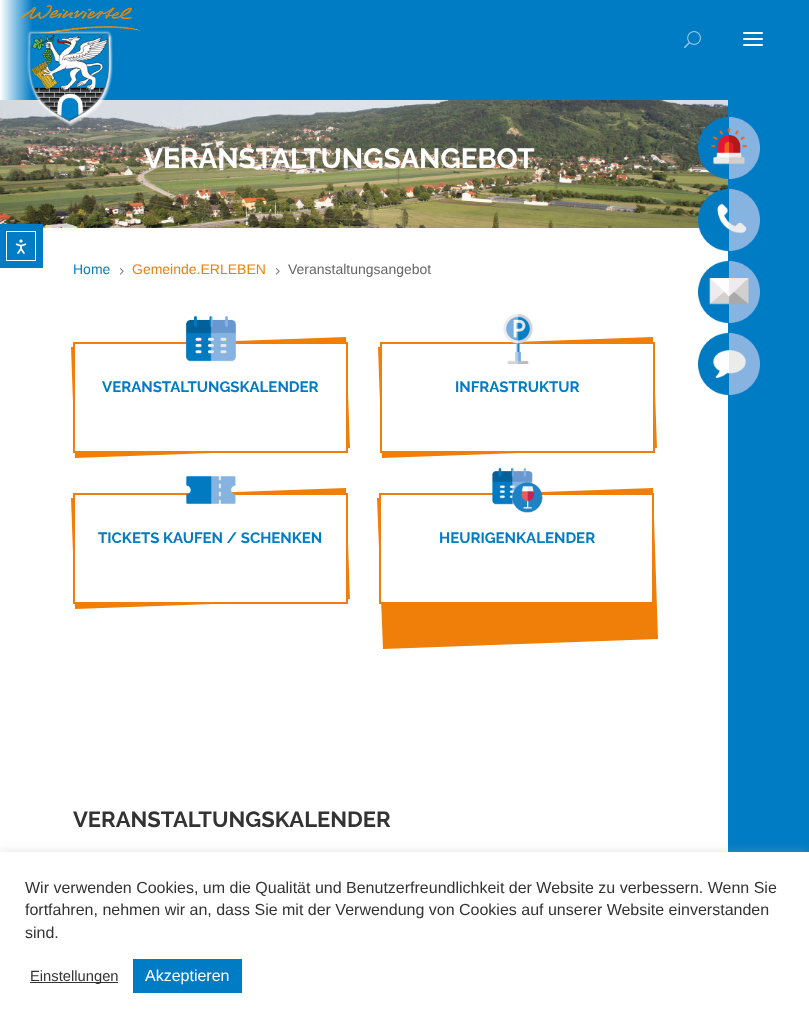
<!DOCTYPE html>
<meta charset="utf-8">
<style>body { margin: 0 } canvas { display: block }</style>
<canvas id="canvas" width="809" height="1023"></canvas>
<script type="module">
  const canvas = document.getElementById("canvas");
  const g = canvas.getContext("2d");
  g.miterLimit = 4;
  g.fontKerning = "normal";
  function drawText(s, x, y, [font, color]) {
    g.font = font;
    g.fillStyle = color;
    g.fillText(s, x, y);
  }
  function fillBox(x, y, w, h, color) {
    g.fillStyle = color;
    g.fillRect(x, y, w, h);
  }
  async function drawPicture(src, x, y, w, h) {
    const img = new Image();
    img.src = src;
    await img.decode();
    g.drawImage(img, x, y, w, h);
  }
  let gradient;

  const s1 = ["bold 28px Raleway", "#FFFFFF"];
  const s2 = ["14px Liberation Sans", "#007CC4"];
  const s3 = ["14px Liberation Sans", "#F07F09"];
  const s4 = ["14px Liberation Sans", "#666666"];
  const s5 = ["bold 15px Raleway", "#007CC4"];
  const s6 = ["bold 22px Raleway", "#333333"];
  const s7 = ["16px Liberation Sans", "#333333"];
  const s8 = ["14.75px Liberation Sans", "#333333"];
  const s9 = ["16px Liberation Sans", "#FFFFFF"];

  fillBox(0, 0, 809, 1023, "#007CC4");
  fillBox(0, 228, 728, 624, "#FFFFFF");
  await drawPicture("pic6.png", 0, 100, 728, 128);
  fillBox(0, 224, 43, 44, "#007CC4");
  g.strokeStyle = "#FFFFFF";
  g.strokeRect(6.5, 231.5, 29, 29);
  await drawPicture("pic1.png", 15, 239, 12, 15);
  gradient = g.createLinearGradient(0, 50, 809, 50);
  gradient.addColorStop(0, "#FFFFFF");
  gradient.addColorStop(0.04, "#007CC4");
  g.fillStyle = gradient;
  g.fillRect(0, 0, 32, 100);
  await drawPicture("pic2.png", 20, 5, 120, 30);
  await drawPicture("pic3.png", 27, 30, 86, 96);
  await drawPicture("pic4.png", 684, 31, 17, 18);
  await drawPicture("pic5.png", 743, 32, 20, 14);
  drawText("VERANSTALTUNGSANGEBOT", 144, 168, s1);
  await drawPicture("pic7.png", 698, 117, 62, 62);
  await drawPicture("pic8.png", 698, 189, 62, 62);
  await drawPicture("pic9.png", 698, 261, 62, 62);
  await drawPicture("pic10.png", 698, 333, 62, 62);
  drawText("Home", 73, 274, s2);
  await drawPicture("pic11.png", 120, 268, 4, 7);
  drawText("Gemeinde.ERLEBEN", 132, 274, s3);
  await drawPicture("pic11.png", 276, 268, 4, 7);
  drawText("Veranstaltungsangebot", 288, 274, s4);
  g.fillStyle = "#F07F09";
  g.beginPath();
  g.moveTo(71, 347);
  g.lineTo(346, 337);
  g.lineTo(350, 448);
  g.lineTo(75, 458);
  g.closePath();
  g.fill();
  g.fillStyle = "#FFFFFF";
  g.beginPath();
  g.rect(74, 343, 273, 109);
  g.fill();
  g.strokeStyle = "#F07F09";
  g.lineWidth = 2;
  g.stroke();
  await drawPicture("pic12.png", 186, 316, 50, 46);
  drawText("VERANSTALTUNGSKALENDER", 102, 392, s5);
  g.fillStyle = "#F07F09";
  g.beginPath();
  g.moveTo(378, 347);
  g.lineTo(653, 337);
  g.lineTo(657, 448);
  g.lineTo(382, 458);
  g.closePath();
  g.fill();
  g.fillStyle = "#FFFFFF";
  g.beginPath();
  g.rect(381, 343, 273, 109);
  g.fill();
  g.stroke();
  await drawPicture("pic13.png", 503, 314, 30, 50);
  drawText("INFRASTRUKTUR", 455, 392, s5);
  g.fillStyle = "#F07F09";
  g.beginPath();
  g.moveTo(71, 498);
  g.lineTo(346, 488);
  g.lineTo(350, 599);
  g.lineTo(75, 609);
  g.closePath();
  g.fill();
  g.fillStyle = "#FFFFFF";
  g.beginPath();
  g.rect(74, 494, 273, 109);
  g.fill();
  g.stroke();
  await drawPicture("pic14.png", 186, 475, 50, 30);
  drawText("TICKETS KAUFEN / SCHENKEN", 98, 543, s5);
  g.fillStyle = "#F07F09";
  g.beginPath();
  g.moveTo(377, 498);
  g.lineTo(653, 488);
  g.lineTo(658, 639);
  g.lineTo(383, 649);
  g.closePath();
  g.fill();
  g.fillStyle = "#FFFFFF";
  g.beginPath();
  g.rect(380, 494, 273, 109);
  g.fill();
  g.stroke();
  await drawPicture("pic15.png", 492, 467, 51, 46);
  drawText("HEURIGENKALENDER", 439, 543, s5);
  drawText("VERANSTALTUNGSKALENDER", 73, 827, s6);
  g.fillStyle = "rgba(172, 171, 171, 0.3)";
  g.filter = "blur(5px)";
  g.beginPath();
  g.rect(0, 851, 809, 171);
  g.fill();
  g.filter = "none";
  fillBox(0, 852, 809, 171, "#FFFFFF");
  drawText("Wir verwenden Cookies, um die Qualität und Benutzerfreundlichkeit der Website zu verbessern. Wenn Sie", 25, 893, s7);
  drawText("fortfahren, nehmen wir an, dass Sie mit der Verwendung von Cookies auf unserer Website einverstanden", 25, 915, s7);
  drawText("sind.", 25, 938, s7);
  fillBox(30, 982, 88, 1, "#333333");
  drawText("Einstellungen", 30, 981, s8);
  fillBox(133, 959, 109, 34, "#007CC4");
  drawText("Akzeptieren", 145, 981, s9);
</script>
